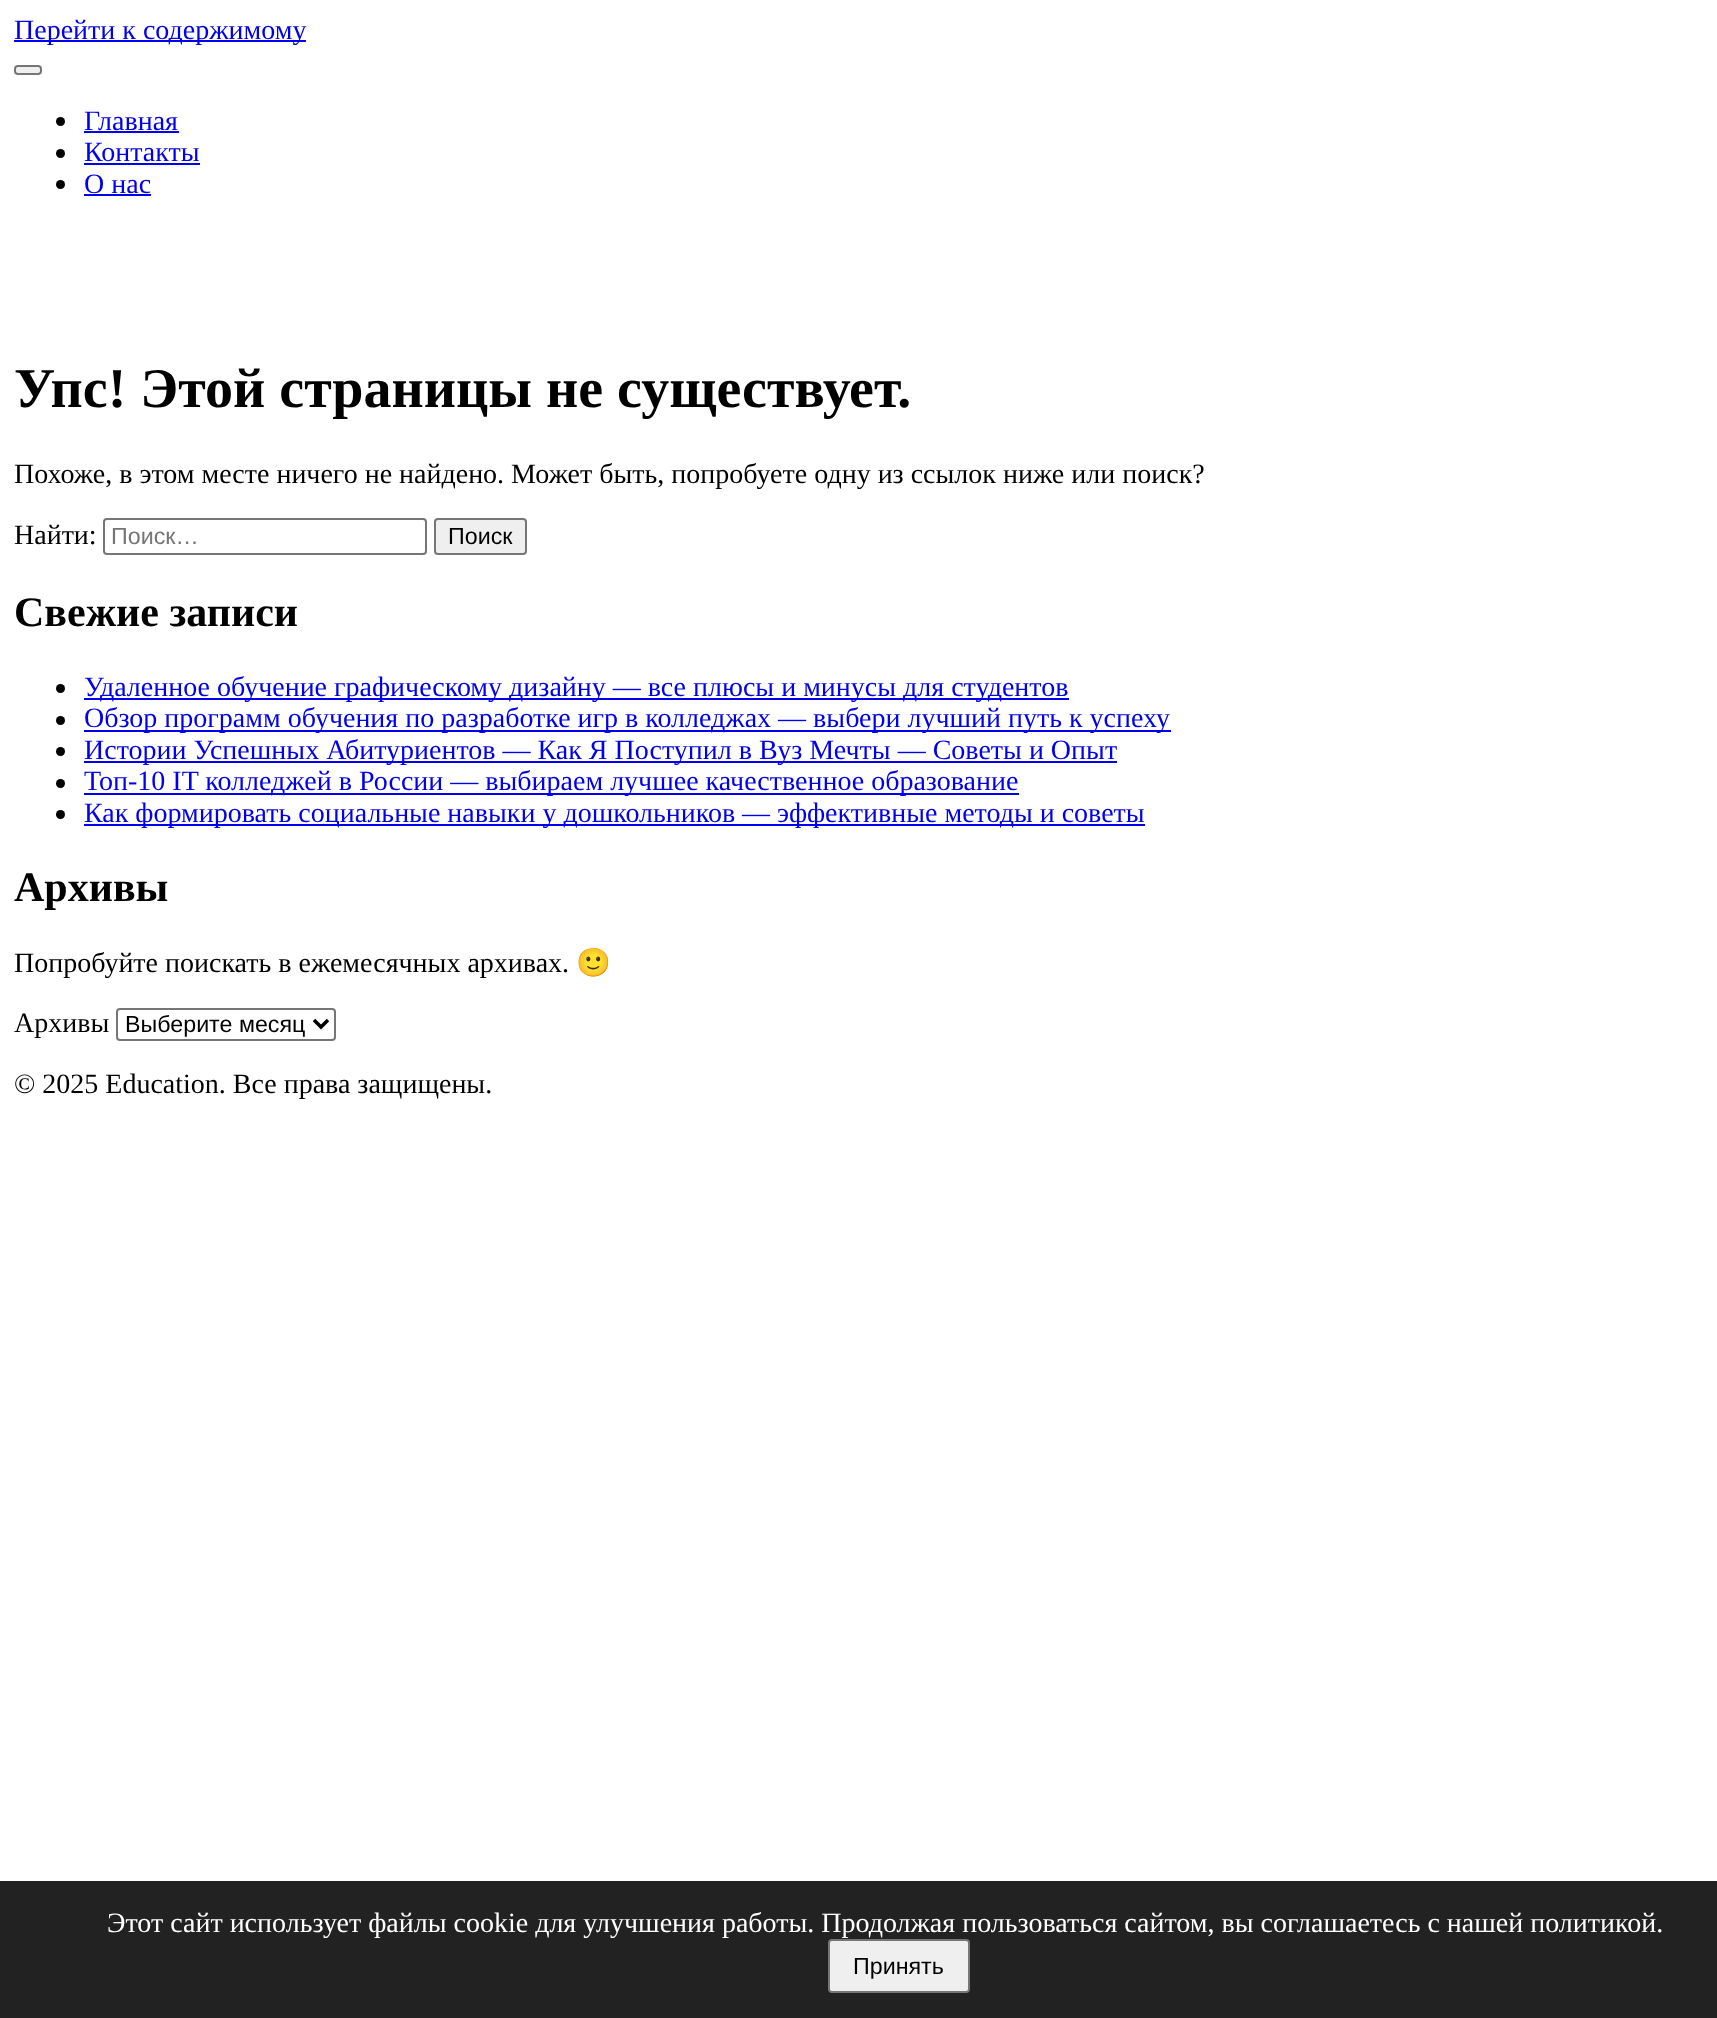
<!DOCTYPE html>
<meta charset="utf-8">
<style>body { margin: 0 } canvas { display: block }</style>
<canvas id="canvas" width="1717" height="2018"></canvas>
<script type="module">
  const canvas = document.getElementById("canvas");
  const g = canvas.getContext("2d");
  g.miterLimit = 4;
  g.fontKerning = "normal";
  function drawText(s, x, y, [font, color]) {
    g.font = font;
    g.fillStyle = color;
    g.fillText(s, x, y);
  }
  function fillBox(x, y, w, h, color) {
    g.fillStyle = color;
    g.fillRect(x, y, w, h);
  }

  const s1 = ["28px Liberation Serif", "#0000EE"];
  const s2 = ["bold 56px Liberation Serif", "#000000"];
  const s3 = ["28px Liberation Serif", "#000000"];
  const s4 = ["23.25px Liberation Sans", "#757575"];
  const s5 = ["23.25px Liberation Sans", "#000000"];
  const s6 = ["bold 42px Liberation Serif", "#000000"];
  const s7 = ["28px Noto Color Emoji", "#000000"];
  const s8 = ["28px Liberation Serif", "#FFFFFF"];

  fillBox(0, 0, 1717, 2018, "#FFFFFF");
  fillBox(14, 40, 292, 2, "#0000EE");
  drawText("Перейти к содержимому", 14, 39, s1);
  g.fillStyle = "#EFEFEF";
  g.beginPath();
  g.roundRect(15, 66, 26, 8, 3);
  g.fill();
  g.strokeStyle = "#767676";
  g.lineWidth = 2;
  g.stroke();
  g.fillStyle = "#000000";
  g.beginPath();
  g.arc(60.5, 121.5, 4.5, 0, Math.PI * 2);
  g.fill();
  drawText("Главная", 84, 130, s1);
  fillBox(84, 131, 95, 2, "#0000EE");
  g.fillStyle = "#000000";
  g.beginPath();
  g.arc(60.5, 153.5, 4.5, 0, Math.PI * 2);
  g.fill();
  drawText("Контакты", 84, 161, s1);
  fillBox(84, 163, 116, 2, "#0000EE");
  g.fillStyle = "#000000";
  g.beginPath();
  g.arc(60.5, 184.5, 4.5, 0, Math.PI * 2);
  g.fill();
  drawText("О нас", 84, 193, s1);
  fillBox(84, 194, 67, 2, "#0000EE");
  drawText("Упс! Этой страницы не существует.", 14, 407, s2);
  drawText("Похоже, в этом месте ничего не найдено. Может быть, попробуете одну из ссылок ниже или поиск?", 14, 483, s3);
  drawText("Найти:", 14, 544, s3);
  g.beginPath();
  g.roundRect(104, 519, 322, 35, 3);
  g.stroke();
  drawText("Поиск…", 111, 544, s4);
  g.fillStyle = "#EFEFEF";
  g.beginPath();
  g.roundRect(435, 519, 91, 35, 3);
  g.fill();
  g.stroke();
  drawText("Поиск", 448, 544, s5);
  drawText("Свежие записи", 14, 626, s6);
  g.beginPath();
  g.arc(60.5, 688.5, 4.5, 0, Math.PI * 2);
  g.fill();
  fillBox(84, 698, 985, 2, "#0000EE");
  drawText("Удаленное обучение графическому дизайну — все плюсы и минусы для студентов", 84, 696, s1);
  g.fillStyle = "#000000";
  g.beginPath();
  g.arc(60.5, 720.5, 4.5, 0, Math.PI * 2);
  g.fill();
  fillBox(84, 730, 1087, 2, "#0000EE");
  drawText("Обзор программ обучения по разработке игр в колледжах — выбери лучший путь к успеху", 84, 727, s1);
  g.fillStyle = "#000000";
  g.beginPath();
  g.arc(60.5, 751.5, 4.5, 0, Math.PI * 2);
  g.fill();
  fillBox(84, 761, 1033, 2, "#0000EE");
  drawText("Истории Успешных Абитуриентов — Как Я Поступил в Вуз Мечты — Советы и Опыт", 84, 759, s1);
  g.fillStyle = "#000000";
  g.beginPath();
  g.arc(60.5, 783.5, 4.5, 0, Math.PI * 2);
  g.fill();
  fillBox(84, 793, 935, 2, "#0000EE");
  drawText("Топ-10 IT колледжей в России — выбираем лучшее качественное образование", 84, 790, s1);
  g.fillStyle = "#000000";
  g.beginPath();
  g.arc(60.5, 814.5, 4.5, 0, Math.PI * 2);
  g.fill();
  fillBox(84, 824, 1061, 2, "#0000EE");
  drawText("Как формировать социальные навыки у дошкольников — эффективные методы и советы", 84, 822, s1);
  drawText("Архивы", 14, 901, s6);
  drawText("Попробуйте поискать в ежемесячных архивах.", 14, 972, s3);
  drawText("🙂", 576, 972, s7);
  drawText("Архивы", 14, 1032, s3);
  g.beginPath();
  g.roundRect(117, 1009, 218, 31, 3);
  g.stroke();
  g.beginPath();
  g.moveTo(314, 1020);
  g.lineTo(321, 1027);
  g.lineTo(328, 1020);
  g.strokeStyle = "#000000";
  g.lineWidth = 3.5;
  g.stroke();
  drawText("Выберите месяц", 125, 1032, s5);
  fillBox(0, 1881, 1717, 137, "#222222");
  drawText("Этот сайт использует файлы cookie для улучшения работы. Продолжая пользоваться сайтом, вы соглашаетесь с нашей политикой.", 107, 1932, s8);
  g.fillStyle = "#EFEFEF";
  g.beginPath();
  g.roundRect(829, 1940, 140, 52, 3);
  g.fill();
  g.strokeStyle = "#767676";
  g.lineWidth = 2;
  g.stroke();
  drawText("Принять", 853, 1974, s5);
  drawText("© 2025 Education. Все права защищены.", 14, 1093, s3);
</script>
